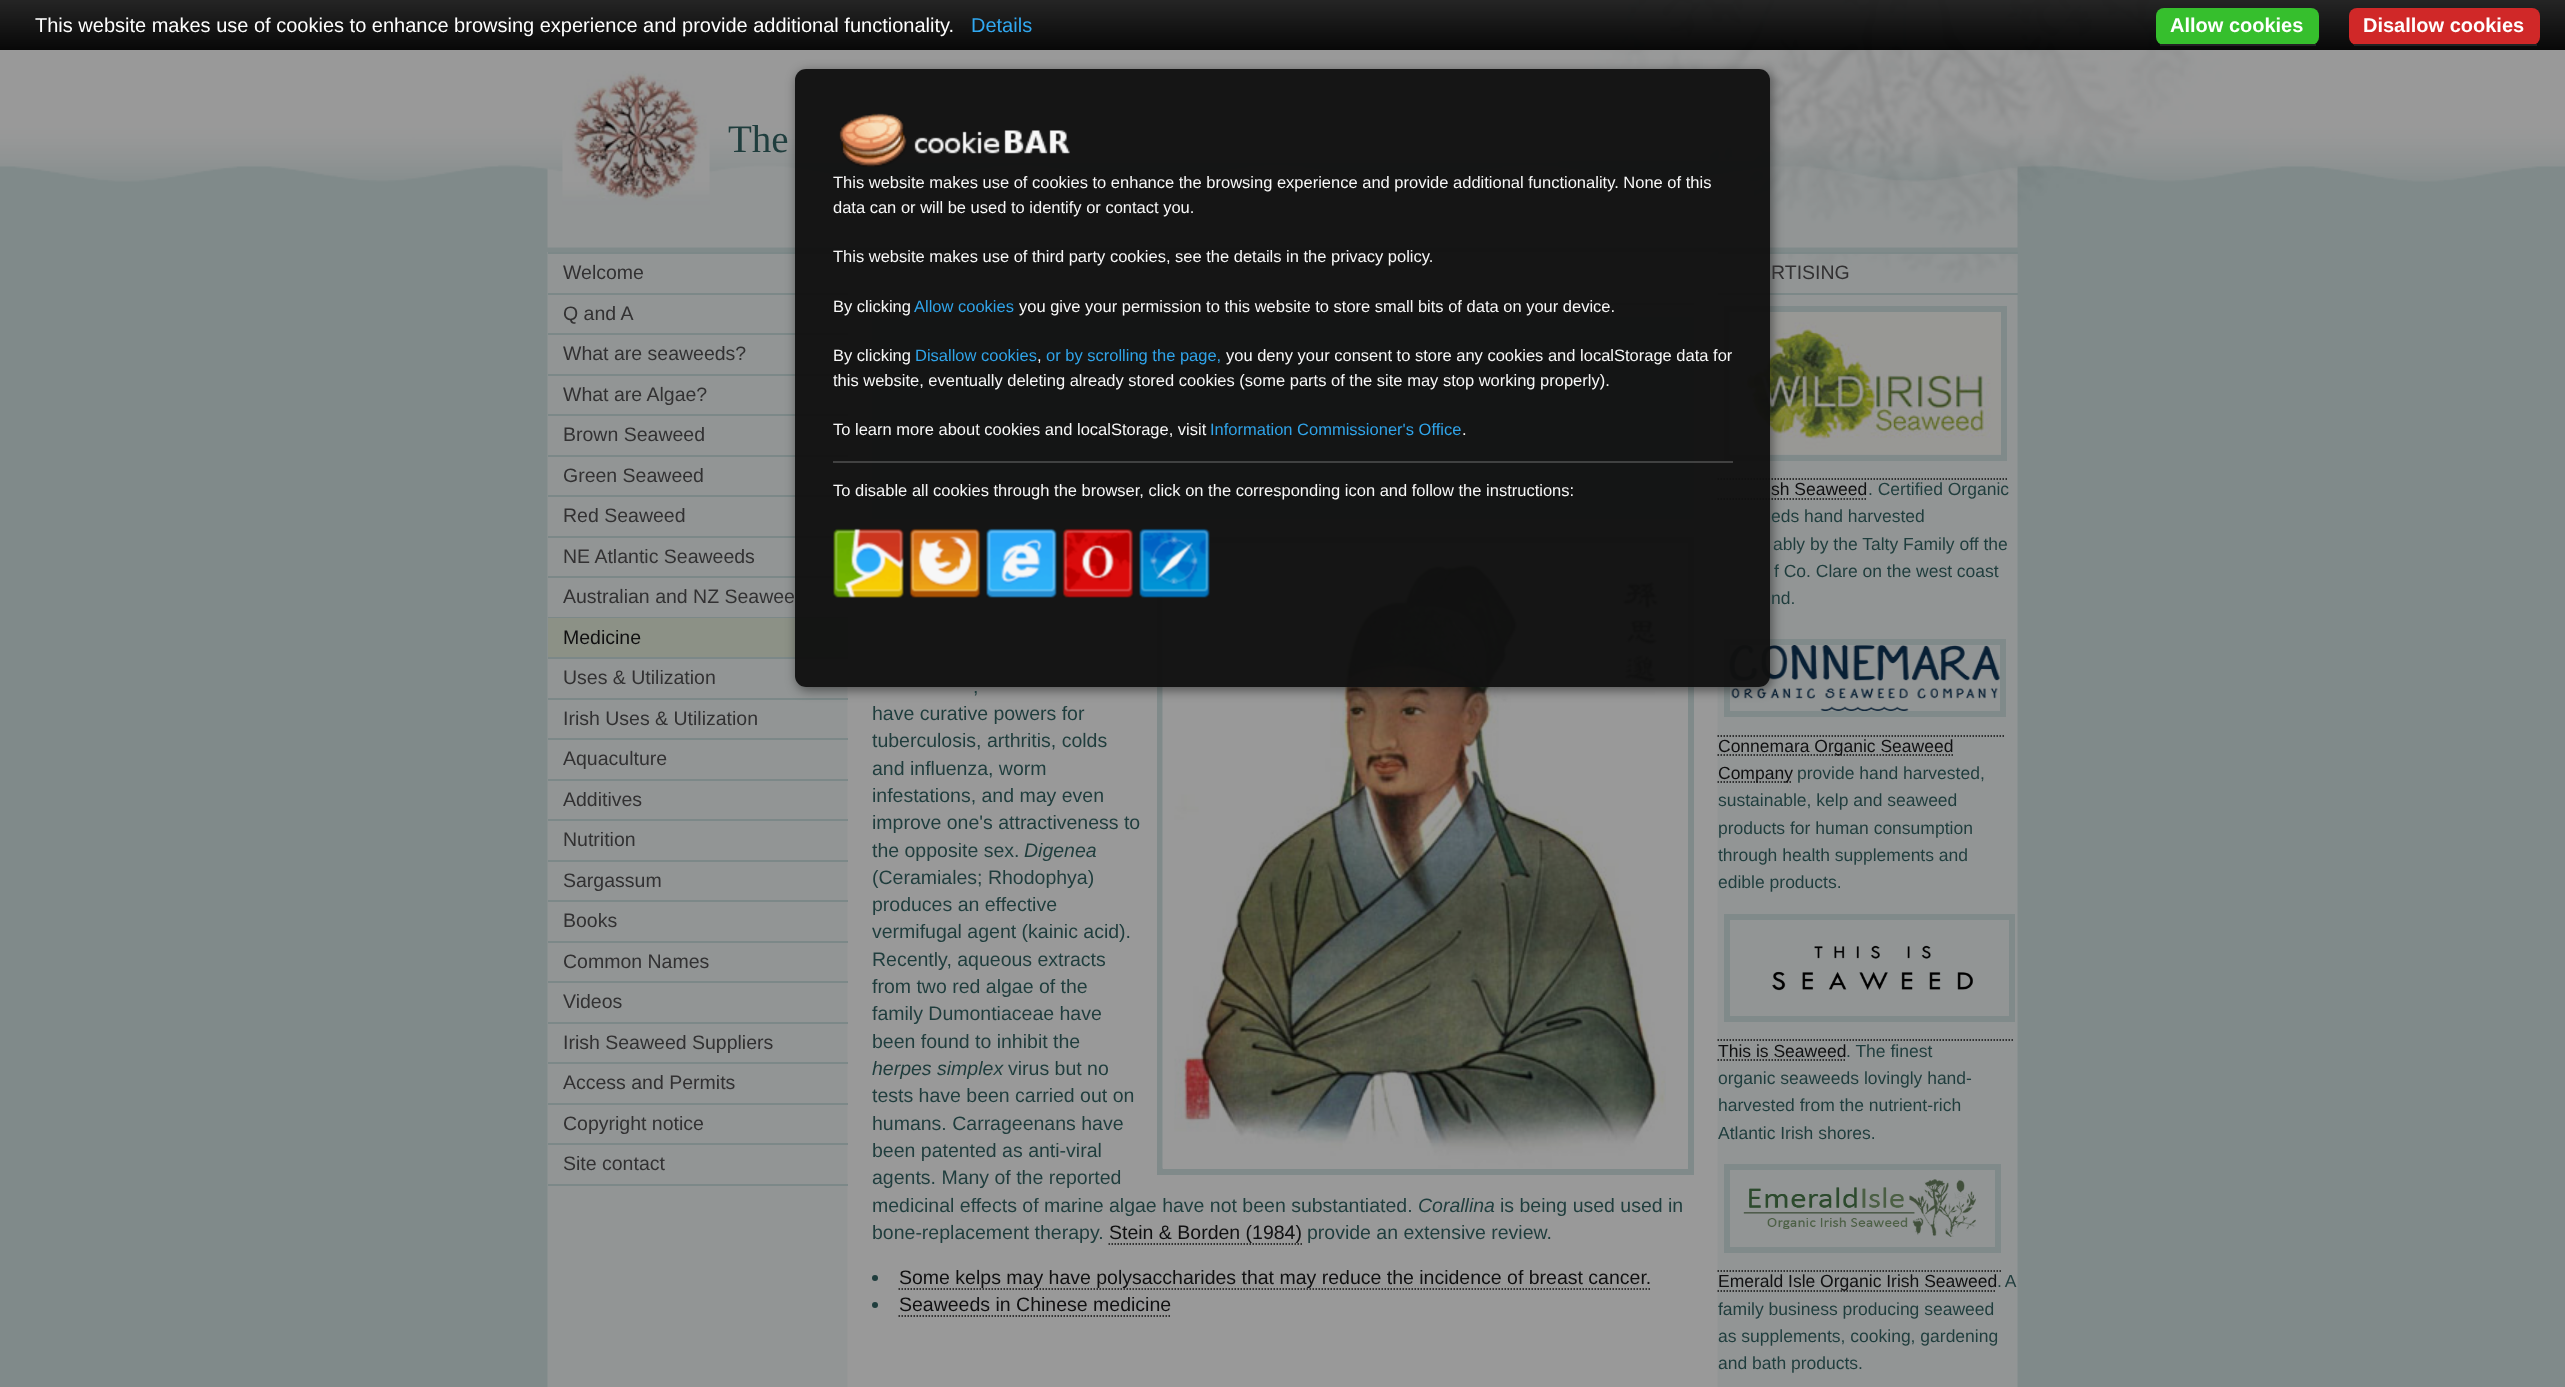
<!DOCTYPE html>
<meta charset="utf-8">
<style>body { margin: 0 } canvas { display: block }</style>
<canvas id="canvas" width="2565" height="1387"></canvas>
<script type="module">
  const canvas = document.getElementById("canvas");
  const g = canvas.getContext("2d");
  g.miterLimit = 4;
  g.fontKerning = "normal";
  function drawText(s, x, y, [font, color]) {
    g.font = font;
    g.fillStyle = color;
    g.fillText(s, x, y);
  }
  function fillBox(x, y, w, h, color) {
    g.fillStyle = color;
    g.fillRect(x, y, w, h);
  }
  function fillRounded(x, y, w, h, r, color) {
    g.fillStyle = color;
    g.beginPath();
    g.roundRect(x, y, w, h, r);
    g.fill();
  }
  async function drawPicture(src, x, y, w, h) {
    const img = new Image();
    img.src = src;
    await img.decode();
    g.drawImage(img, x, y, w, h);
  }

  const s1 = ["20px Liberation Sans", "#FFFFFF"];
  const s2 = ["20px Liberation Sans", "#31A8F0"];
  const s3 = ["bold 20px Liberation Sans", "#FFFFFF"];
  const s4 = ["16.5px Liberation Sans", "#F8F8F8"];
  const s5 = ["16.5px Liberation Sans", "#30A4E9"];
  const s6 = ["39px Liberation Serif", "#1F3D3D"];
  const s7 = ["19.5px Liberation Sans", "#323132"];
  const s8 = ["19.5px Liberation Sans", "#101011"];
  const s9 = ["19.5px Liberation Sans", "#1F3D3D"];
  const s10 = ["italic 19.5px Liberation Sans", "#1F3D3D"];
  const s11 = ["17.5px Liberation Sans", "#101011"];
  const s12 = ["17.5px Liberation Sans", "#1F3D3D"];

  fillBox(0, 0, 2565, 1387, "#808A8A");
  await drawPicture("pic1.png", 0, 0, 2565, 248);
  drawText("This website makes use of cookies to enhance browsing experience and provide additional functionality.", 35, 32, s1);
  drawText("Details", 971, 32, s2);
  fillRounded(2156, 8, 163, 37, 8, "#36BF2D");
  fillBox(2160, 44, 156, 2, "#222222");
  drawText("Allow cookies", 2170, 32, s3);
  fillRounded(2349, 8, 191, 37, 8, "#D02828");
  fillBox(2354, 44, 183, 2, "#222222");
  drawText("Disallow cookies", 2363, 32, s3);
  await drawPicture("pic9.png", 547, 252, 1471, 1135);
  fillBox(548, 252, 300, 2, "#7C8888");
  fillBox(548, 293, 300, 2, "#7C8888");
  fillBox(548, 333, 300, 2, "#7C8888");
  fillBox(548, 374, 300, 2, "#7C8888");
  fillBox(548, 414, 300, 2, "#7C8888");
  fillBox(548, 455, 300, 2, "#7C8888");
  fillBox(548, 495, 300, 2, "#7C8888");
  fillBox(548, 536, 300, 2, "#7C8888");
  fillBox(548, 576, 300, 2, "#7C8888");
  fillBox(548, 617, 300, 1, "#7C8888");
  fillBox(548, 618, 300, 39, "#8C9186");
  fillBox(548, 657, 300, 2, "#7C8888");
  fillBox(548, 698, 300, 2, "#7C8888");
  fillBox(872, 303, 822, 2, "#7C8888");
  fillBox(872, 317, 822, 202, "#8C9292");
  g.strokeStyle = "#808A8A";
  g.lineWidth = 6;
  g.strokeRect(1160, 540, 531, 632);
  await drawPicture("pic10.png", 1162, 543, 504, 626);
  await drawPicture("pic11.png", 1788, 254, 229, 29);
  fillBox(1718, 252, 300, 2, "#7C8888");
  fillBox(1718, 293, 300, 2, "#7C8888");
  g.strokeRect(1727, 309, 277, 149);
  await drawPicture("pic12.png", 1729, 312, 272, 143);
  g.beginPath();
  g.moveTo(1717.5, 479);
  g.lineTo(2007, 479);
  g.strokeStyle = "#101011";
  g.lineWidth = 1.5;
  g.setLineDash([1.5, 1.5]);
  g.stroke();
  g.beginPath();
  g.moveTo(1717.5, 499);
  g.lineTo(1867.5, 499);
  g.stroke();
  g.strokeStyle = "#808A8A";
  g.lineWidth = 6;
  g.setLineDash([]);
  g.strokeRect(1727, 642, 276, 72);
  await drawPicture("pic13.png", 1729, 645, 271, 66);
  g.save();
  g.beginPath();
  g.moveTo(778, 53);
  g.lineTo(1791, 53);
  g.lineTo(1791, 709);
  g.lineTo(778, 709);
  g.closePath();
  g.moveTo(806, 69);
  g.lineTo(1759, 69);
  g.bezierCurveTo(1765, 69, 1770, 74, 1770, 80);
  g.lineTo(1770, 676);
  g.bezierCurveTo(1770, 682, 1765, 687, 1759, 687);
  g.lineTo(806, 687);
  g.bezierCurveTo(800, 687, 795, 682, 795, 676);
  g.lineTo(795, 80);
  g.bezierCurveTo(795, 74, 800, 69, 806, 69);
  g.closePath();
  g.clip("evenodd");
  g.fillStyle = "rgba(0, 0, 0, 0.48)";
  g.filter = "blur(6px)";
  g.beginPath();
  g.roundRect(797, 72, 975, 618, 11);
  g.fill();
  g.filter = "none";
  g.restore();
  fillRounded(795, 69, 975, 618, 11, "rgba(17, 17, 17, 0.97)");
  await drawPicture("pic2.png", 839, 113, 231, 54);
  drawText("This website makes use of cookies to enhance the browsing experience and provide additional functionality. None of this", 833, 188, s4);
  drawText("data can or will be used to identify or contact you.", 833, 213, s4);
  drawText("This website makes use of third party cookies, see the details in the privacy policy.", 833, 262, s4);
  drawText("By clicking", 833, 312, s4);
  drawText("Allow cookies", 914, 312, s5);
  drawText("you give your permission to this website to store small bits of data on your device.", 1019, 312, s4);
  drawText("By clicking", 833, 361, s4);
  drawText("Disallow cookies", 915, 361, s5);
  drawText(",", 1037, 361, s4);
  drawText("or by scrolling the page,", 1046, 361, s5);
  drawText("you deny your consent to store any cookies and localStorage data for", 1226, 361, s4);
  drawText("this website, eventually deleting already stored cookies (some parts of the site may stop working properly).", 833, 386, s4);
  drawText("To learn more about cookies and localStorage, visit", 833, 435, s4);
  drawText("Information Commissioner's Office", 1210, 435, s5);
  drawText(".", 1462, 435, s4);
  fillBox(833, 461, 900, 2, "rgba(255, 255, 255, 0.19)");
  drawText("To disable all cookies through the browser, click on the corresponding icon and follow the instructions:", 833, 496, s4);
  await drawPicture("pic3.png", 833, 528, 71, 70);
  await drawPicture("pic4.png", 909, 528, 72, 70);
  await drawPicture("pic5.png", 986, 528, 71, 70);
  await drawPicture("pic6.png", 1062, 528, 72, 70);
  await drawPicture("pic7.png", 1139, 528, 71, 70);
  await drawPicture("pic8.png", 562, 71, 148, 134);
  drawText("The", 728, 152, s6);
  drawText("Welcome", 563, 279, s7);
  drawText("Q and A", 563, 320, s7);
  drawText("What are seaweeds?", 563, 360, s7);
  drawText("What are Algae?", 563, 401, s7);
  drawText("Brown Seaweed", 563, 441, s7);
  drawText("Green Seaweed", 563, 482, s7);
  drawText("Red Seaweed", 563, 522, s7);
  drawText("NE Atlantic Seaweeds", 563, 563, s7);
  drawText("Australian and NZ Seawee", 563, 603, s7);
  drawText("Medicine", 563, 644, s8);
  drawText("Uses & Utilization", 563, 684, s7);
  fillBox(548, 738, 300, 2, "#7C8888");
  drawText("Irish Uses & Utilization", 563, 725, s7);
  fillBox(548, 779, 300, 2, "#7C8888");
  drawText("Aquaculture", 563, 765, s7);
  fillBox(548, 819, 300, 2, "#7C8888");
  drawText("Additives", 563, 806, s7);
  fillBox(548, 860, 300, 2, "#7C8888");
  drawText("Nutrition", 563, 846, s7);
  fillBox(548, 900, 300, 2, "#7C8888");
  drawText("Sargassum", 563, 887, s7);
  fillBox(548, 941, 300, 2, "#7C8888");
  drawText("Books", 563, 927, s7);
  fillBox(548, 981, 300, 2, "#7C8888");
  drawText("Common Names", 563, 968, s7);
  fillBox(548, 1022, 300, 2, "#7C8888");
  drawText("Videos", 563, 1008, s7);
  fillBox(548, 1062, 300, 2, "#7C8888");
  drawText("Irish Seaweed Suppliers", 563, 1049, s7);
  fillBox(548, 1103, 300, 2, "#7C8888");
  drawText("Access and Permits", 563, 1089, s7);
  fillBox(548, 1143, 300, 2, "#7C8888");
  drawText("Copyright notice", 563, 1130, s7);
  fillBox(548, 1184, 300, 2, "#7C8888");
  drawText("Site contact", 563, 1170, s7);
  drawText(",", 973, 693, s9);
  drawText("have curative powers for", 872, 720, s9);
  drawText("tuberculosis, arthritis, colds", 872, 747, s9);
  drawText("and influenza, worm", 872, 775, s9);
  drawText("infestations, and may even", 872, 802, s9);
  drawText("improve one's attractiveness to", 872, 829, s9);
  drawText("the opposite sex.", 872, 857, s9);
  drawText("Digenea", 1024, 857, s10);
  drawText("(Ceramiales; Rhodophya)", 872, 884, s9);
  drawText("produces an effective", 872, 911, s9);
  drawText("vermifugal agent (kainic acid).", 872, 938, s9);
  drawText("Recently, aqueous extracts", 872, 966, s9);
  drawText("from two red algae of the", 872, 993, s9);
  drawText("family Dumontiaceae have", 872, 1020, s9);
  drawText("been found to inhibit the", 872, 1048, s9);
  drawText("herpes simplex", 872, 1075, s10);
  drawText("virus but no", 1008, 1075, s9);
  drawText("tests have been carried out on", 872, 1102, s9);
  drawText("humans. Carrageenans have", 872, 1130, s9);
  drawText("been patented as anti-viral", 872, 1157, s9);
  drawText("agents. Many of the reported", 872, 1184, s9);
  drawText("medicinal effects of marine algae have not been substantiated.", 872, 1212, s9);
  drawText("Corallina", 1418, 1212, s10);
  drawText("is being used used in", 1500, 1212, s9);
  drawText("bone-replacement therapy.", 872, 1239, s9);
  g.beginPath();
  g.moveTo(1108.5, 1244);
  g.lineTo(1302, 1244);
  g.strokeStyle = "#101011";
  g.lineWidth = 1.5;
  g.setLineDash([1.5, 1.5]);
  g.stroke();
  drawText("Stein & Borden (1984)", 1109, 1239, s8);
  drawText("provide an extensive review.", 1307, 1239, s9);
  g.beginPath();
  g.arc(875, 1278, 3, 0, Math.PI * 2);
  g.fill();
  g.beginPath();
  g.moveTo(898.5, 1289);
  g.lineTo(1651.5, 1289);
  g.stroke();
  drawText("Some kelps may have polysaccharides that may reduce the incidence of breast cancer.", 899, 1284, s8);
  g.fillStyle = "#1F3D3D";
  g.beginPath();
  g.arc(875, 1305, 3, 0, Math.PI * 2);
  g.fill();
  drawText("Seaweeds in Chinese medicine", 899, 1311, s8);
  g.beginPath();
  g.moveTo(898.5, 1316);
  g.lineTo(1170, 1316);
  g.stroke();
  drawText("RTISING", 1771, 279, s7);
  drawText("sh Seaweed", 1771, 495, s11);
  drawText(". Certified Organic", 1868, 495, s12);
  drawText("eds hand harvested", 1771, 522, s12);
  drawText("ably by the Talty Family off the", 1773, 550, s12);
  drawText("f Co. Clare on the west coast", 1774, 577, s12);
  drawText("nd.", 1771, 604, s12);
  g.beginPath();
  g.moveTo(1717.5, 736);
  g.lineTo(2005.5, 736);
  g.stroke();
  g.beginPath();
  g.moveTo(1717.5, 755);
  g.lineTo(1953, 755);
  g.stroke();
  drawText("Connemara Organic Seaweed", 1718, 752, s11);
  g.beginPath();
  g.moveTo(1717.5, 782);
  g.lineTo(1792.5, 782);
  g.stroke();
  drawText("Company", 1718, 779, s11);
  drawText("provide hand harvested,", 1797, 779, s12);
  drawText("sustainable, kelp and seaweed", 1718, 806, s12);
  drawText("products for human consumption", 1718, 834, s12);
  drawText("through health supplements and", 1718, 861, s12);
  drawText("edible products.", 1718, 888, s12);
  g.strokeStyle = "#808A8A";
  g.lineWidth = 6;
  g.setLineDash([]);
  g.strokeRect(1727, 917, 285, 102);
  await drawPicture("pic14.png", 1772, 945, 201, 46);
  g.beginPath();
  g.moveTo(1717.5, 1040);
  g.lineTo(2014.5, 1040);
  g.strokeStyle = "#101011";
  g.lineWidth = 1.5;
  g.setLineDash([1.5, 1.5]);
  g.stroke();
  drawText("This is Seaweed", 1718, 1057, s11);
  g.beginPath();
  g.moveTo(1717.5, 1060);
  g.lineTo(1846.5, 1060);
  g.stroke();
  drawText(". The finest", 1846, 1057, s12);
  drawText("organic seaweeds lovingly hand-", 1718, 1084, s12);
  drawText("harvested from the nutrient-rich", 1718, 1111, s12);
  drawText("Atlantic Irish shores.", 1718, 1139, s12);
  g.strokeStyle = "#808A8A";
  g.lineWidth = 6;
  g.setLineDash([]);
  g.strokeRect(1727, 1167, 271, 83);
  await drawPicture("pic15.png", 1743, 1179, 233, 58);
  g.beginPath();
  g.moveTo(1717.5, 1271);
  g.lineTo(2001, 1271);
  g.strokeStyle = "#101011";
  g.lineWidth = 1.5;
  g.setLineDash([1.5, 1.5]);
  g.stroke();
  g.beginPath();
  g.moveTo(1717.5, 1291);
  g.lineTo(1996.5, 1291);
  g.stroke();
  drawText("Emerald Isle Organic Irish Seaweed", 1718, 1287, s11);
  g.wordSpacing = "-1px";
  drawText(". A", 1997, 1287, s12);
  g.wordSpacing = "0px";
  drawText("family business producing seaweed", 1718, 1315, s12);
  drawText("as supplements, cooking, gardening", 1718, 1342, s12);
  drawText("and bath products.", 1718, 1369, s12);
</script>
